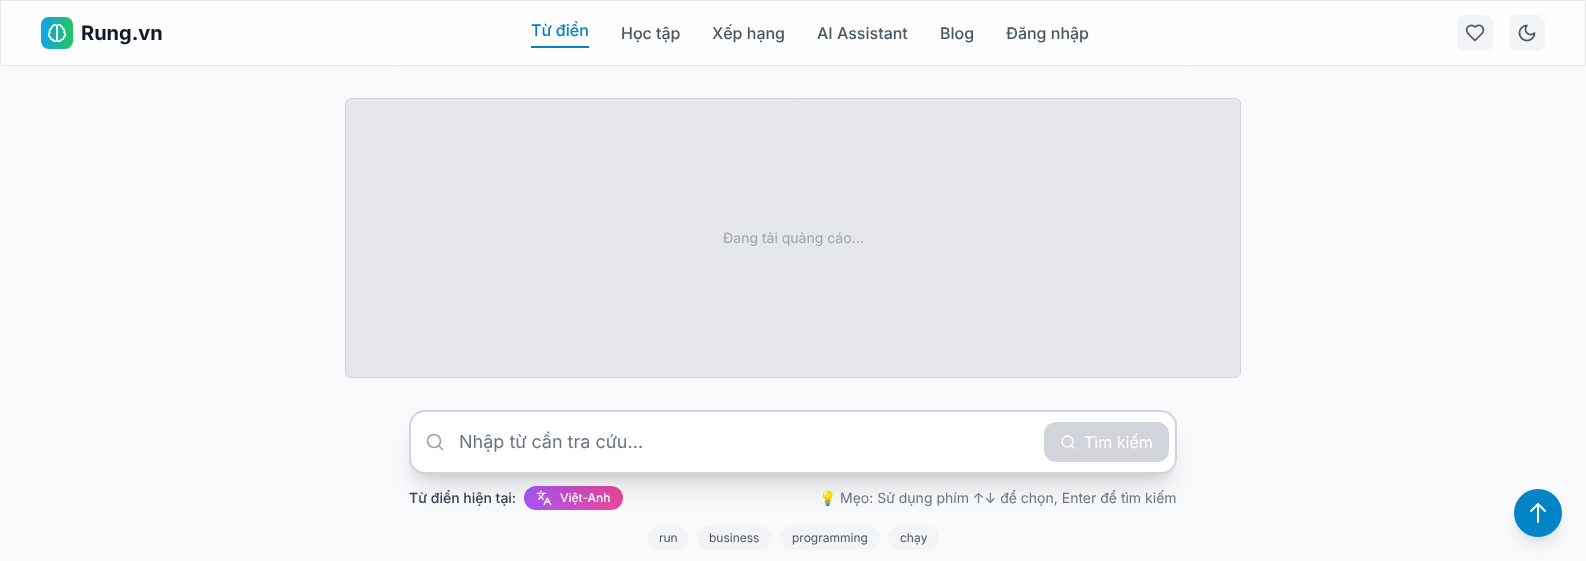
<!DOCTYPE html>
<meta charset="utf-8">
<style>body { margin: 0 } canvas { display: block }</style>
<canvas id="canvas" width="1586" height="561"></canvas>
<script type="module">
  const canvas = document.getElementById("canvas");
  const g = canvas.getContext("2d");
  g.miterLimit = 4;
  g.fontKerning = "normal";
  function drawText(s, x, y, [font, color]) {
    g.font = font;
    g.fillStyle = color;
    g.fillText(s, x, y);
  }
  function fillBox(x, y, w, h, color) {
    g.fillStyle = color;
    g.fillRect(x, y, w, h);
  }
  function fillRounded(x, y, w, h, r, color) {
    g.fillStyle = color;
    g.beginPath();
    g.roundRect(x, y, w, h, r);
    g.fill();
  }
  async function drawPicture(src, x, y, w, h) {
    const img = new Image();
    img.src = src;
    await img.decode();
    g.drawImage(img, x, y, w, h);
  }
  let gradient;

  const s1 = ["bold 20px Inter", "#111827"];
  const s2 = ["500 16px Inter", "#0284C7"];
  const s3 = ["500 16px Inter", "#4B5563"];
  const s4 = ["14px Inter", "#9CA3AF"];
  const s5 = ["18px Inter", "#6B7280"];
  const s6 = ["16px Inter", "#FFFFFF"];
  const s7 = ["500 14px Inter", "#374151"];
  const s8 = ["500 12px Inter", "#FFFFFF"];
  const s9 = ["14px Noto Color Emoji", "#6B7280"];
  const s10 = ["14px Inter", "#6B7280"];
  const s11 = ["12px Inter", "#4B5563"];

  fillBox(0, 0, 1586, 561, "#F9FAFB");
  g.fillStyle = "#FEFEFE";
  g.beginPath();
  g.rect(0.5, 0.5, 1585, 65);
  g.fill();
  g.strokeStyle = "#E5E7EB";
  g.stroke();
  gradient = g.createLinearGradient(41, 33, 73, 33);
  gradient.addColorStop(0, "#0EA5E9");
  gradient.addColorStop(1, "#22C55E");
  g.fillStyle = gradient;
  g.beginPath();
  g.roundRect(41, 17, 32, 32, 8);
  g.fill();
  await drawPicture("pic1.png", 47, 23, 20, 20);
  drawText("Rung.vn", 81, 40, s1);
  fillBox(531, 46, 58, 2, "#0284C7");
  drawText("Từ điển", 531, 36, s2);
  drawText("Học tập", 621, 39, s3);
  drawText("Xếp hạng", 712, 39, s3);
  drawText("AI Assistant", 817, 39, s3);
  drawText("Blog", 940, 39, s3);
  drawText("Đăng nhập", 1006, 39, s3);
  fillRounded(1457, 15, 36, 36, 8, "#F3F4F6");
  g.beginPath();
  g.moveTo(1481, 34.5);
  g.bezierCurveTo(1487, 28.5, 1480, 22.5, 1475, 27);
  g.bezierCurveTo(1471.5, 23.5, 1465.5, 26.5, 1467, 31.5);
  g.bezierCurveTo(1468, 34.5, 1473, 38.5, 1475, 40.5);
  g.closePath();
  g.strokeStyle = "#4B5563";
  g.lineWidth = 1.7;
  g.lineCap = "round";
  g.lineJoin = "round";
  g.stroke();
  fillRounded(1509, 15, 36, 36, 8, "#F3F4F6");
  await drawPicture("pic2.png", 1518, 24, 18, 18);
  g.fillStyle = "#E5E7EB";
  g.beginPath();
  g.roundRect(345.5, 98.5, 895, 279, 5.5);
  g.fill();
  g.strokeStyle = "#D1D5DB";
  g.lineWidth = 1;
  g.lineJoin = "miter";
  g.stroke();
  drawText("Đang tải quảng cáo...", 723, 243, s4);
  gradient = g.createLinearGradient(524, 498, 623, 498);
  gradient.addColorStop(0, "#A855F7");
  gradient.addColorStop(1, "#EC4899");
  g.fillStyle = gradient;
  g.beginPath();
  g.roundRect(524, 486, 99, 24, 12);
  g.fill();
  await drawPicture("pic3.png", 536, 490, 16, 16);
  g.fillStyle = "rgba(0, 0, 0, 0.1)";
  g.filter = "blur(5px)";
  g.beginPath();
  g.roundRect(415, 424, 756, 52, 10);
  g.fill();
  g.filter = "none";
  fillRounded(647, 526, 42, 24, 12, "#F3F4F6");
  fillRounded(697, 526, 75, 24, 12, "#F3F4F6");
  fillRounded(780, 526, 100, 24, 12, "#F3F4F6");
  fillRounded(888, 526, 51, 24, 12, "#F3F4F6");
  g.fillStyle = "rgba(0, 0, 0, 0.1)";
  g.filter = "blur(12.5px)";
  g.beginPath();
  g.roundRect(414, 435, 758, 54, 11);
  g.fill();
  g.filter = "none";
  g.fillStyle = "#FFFFFF";
  g.beginPath();
  g.roundRect(410, 411, 766, 62, 15);
  g.fill();
  g.lineWidth = 2;
  g.stroke();
  g.beginPath();
  g.arc(434, 441, 6.5, 0, Math.PI * 2);
  g.strokeStyle = "#9CA3AF";
  g.lineWidth = 1.7;
  g.stroke();
  g.beginPath();
  g.moveTo(442.5, 449.5);
  g.lineTo(439, 446);
  g.lineJoin = "round";
  g.stroke();
  drawText("Nhập từ cần tra cứu...", 459, 448, s5);
  fillRounded(1044, 422, 125, 40, 12, "#D1D5DB");
  g.beginPath();
  g.arc(1067.5, 441.5, 5.5, 0, Math.PI * 2);
  g.strokeStyle = "#FFFFFF";
  g.lineWidth = 1.3;
  g.stroke();
  g.beginPath();
  g.moveTo(1074, 448);
  g.lineTo(1071, 445);
  g.stroke();
  drawText("Tìm kiếm", 1084, 448, s6);
  drawText("Từ điển hiện tại:", 409, 503, s7);
  drawText("Việt-Anh", 560, 502, s8);
  drawText("💡", 819, 503, s9);
  drawText("Mẹo: Sử dụng phím ↑↓ để chọn, Enter để tìm kiếm", 840, 503, s10);
  drawText("run", 659, 542, s11);
  drawText("business", 709, 542, s11);
  drawText("programming", 792, 542, s11);
  drawText("chạy", 900, 542, s11);
  g.fillStyle = "rgba(0, 0, 0, 0.1)";
  g.filter = "blur(3px)";
  g.beginPath();
  g.roundRect(1518, 497, 40, 40, 20);
  g.fill();
  g.filter = "none";
  g.filter = "blur(7.5px)";
  g.beginPath();
  g.roundRect(1517, 502, 42, 42, 21);
  g.fill();
  g.filter = "none";
  g.fillStyle = "#0284C7";
  g.beginPath();
  g.arc(1538, 513, 24, 0, Math.PI * 2);
  g.fill();
  g.beginPath();
  g.moveTo(1531, 511);
  g.lineTo(1538, 504);
  g.moveTo(1538, 504);
  g.lineTo(1545, 511);
  g.moveTo(1538, 504);
  g.lineTo(1538, 522);
  g.lineWidth = 2;
  g.stroke();
</script>
